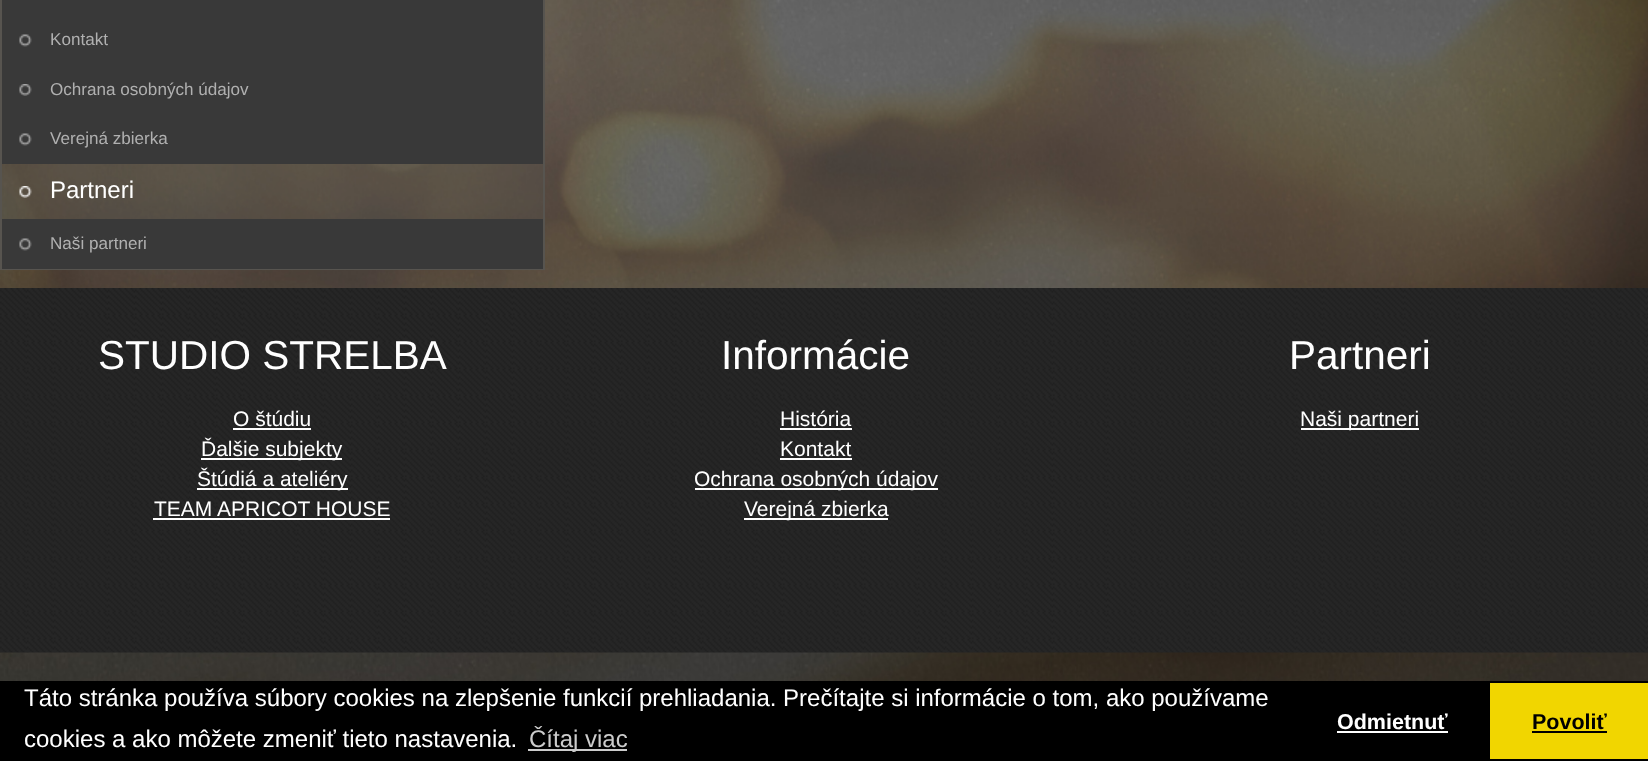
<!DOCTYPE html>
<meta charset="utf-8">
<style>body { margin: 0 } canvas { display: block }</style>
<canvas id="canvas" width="1648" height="761"></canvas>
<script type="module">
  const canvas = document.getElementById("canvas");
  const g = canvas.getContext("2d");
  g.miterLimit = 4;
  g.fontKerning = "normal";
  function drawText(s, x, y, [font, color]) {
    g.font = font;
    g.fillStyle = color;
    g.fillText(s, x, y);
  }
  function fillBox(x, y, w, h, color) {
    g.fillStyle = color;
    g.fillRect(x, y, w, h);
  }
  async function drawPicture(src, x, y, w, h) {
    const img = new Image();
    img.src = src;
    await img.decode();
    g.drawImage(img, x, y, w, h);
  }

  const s1 = ["17.1px Liberation Sans", "#B0B0B0"];
  const s2 = ["24px Liberation Sans", "#FFFFFF"];
  const s3 = ["40.5px Liberation Sans", "#FFFFFF"];
  const s4 = ["21px Liberation Sans", "#FFFFFF"];
  const s5 = ["24px Liberation Sans", "#CCCCCC"];
  const s6 = ["bold 21.5px Liberation Sans", "#FFFFFF"];
  const s7 = ["bold 21.5px Liberation Sans", "#000000"];

  fillBox(0, 0, 1648, 761, "#FFFFFF");
  await drawPicture("pic1.png", 0, 0, 1648, 681);
  fillBox(2, 164, 541, 55, "rgba(85, 84, 79, 0.32)");
  g.strokeStyle = "#57544F";
  g.lineWidth = 2;
  g.strokeRect(1, -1, 543, 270);
  fillBox(2, 0, 541, 164, "#393939");
  await drawPicture("pic2.png", 19, 34, 13, 13);
  drawText("Kontakt", 50, 45, s1);
  await drawPicture("pic3.png", 19, 84, 13, 12);
  drawText("Ochrana osobných údajov", 50, 95, s1);
  await drawPicture("pic2.png", 19, 133, 13, 13);
  drawText("Verejná zbierka", 50, 144, s1);
  await drawPicture("pic4.png", 19, 186, 13, 12);
  drawText("Partneri", 50, 198, s2);
  fillBox(2, 219, 541, 50, "#393939");
  await drawPicture("pic2.png", 19, 238, 13, 13);
  drawText("Naši partneri", 50, 249, s1);
  await drawPicture("pic5.png", 0, 288, 1648, 365);
  drawText("STUDIO STRELBA", 98, 369, s3);
  drawText("O štúdiu", 233, 426, s4);
  fillBox(233, 428, 78, 2, "#FFFFFF");
  fillBox(201, 458, 141, 2, "#FFFFFF");
  drawText("Ďalšie subjekty", 201, 456, s4);
  fillBox(197, 488, 151, 2, "#FFFFFF");
  drawText("Štúdiá a ateliéry", 197, 486, s4);
  drawText("TEAM APRICOT HOUSE", 154, 516, s4);
  fillBox(153, 518, 237, 2, "#FFFFFF");
  drawText("Informácie", 721, 369, s3);
  drawText("História", 780, 426, s4);
  fillBox(780, 428, 72, 2, "#FFFFFF");
  drawText("Kontakt", 780, 456, s4);
  fillBox(780, 458, 72, 2, "#FFFFFF");
  fillBox(695, 488, 243, 2, "#FFFFFF");
  drawText("Ochrana osobných údajov", 694, 486, s4);
  fillBox(744, 518, 144, 2, "#FFFFFF");
  drawText("Verejná zbierka", 744, 516, s4);
  drawText("Partneri", 1289, 369, s3);
  fillBox(1301, 428, 118, 2, "#FFFFFF");
  drawText("Naši partneri", 1300, 426, s4);
  fillBox(0, 681, 1648, 80, "#000000");
  drawText("Táto stránka používa súbory cookies na zlepšenie funkcií prehliadania. Prečítajte si informácie o tom, ako používame", 24, 706, s2);
  drawText("cookies a ako môžete zmeniť tieto nastavenia.", 24, 747, s2);
  fillBox(528, 749, 99, 2, "#CCCCCC");
  drawText("Čítaj viac", 529, 747, s5);
  drawText("Odmietnuť", 1337, 729, s6);
  fillBox(1337, 731, 111, 2, "#FFFFFF");
  fillBox(1490, 683, 158, 76, "#F1D600");
  drawText("Povoliť", 1532, 729, s7);
  fillBox(1532, 731, 75, 2, "#000000");
</script>
